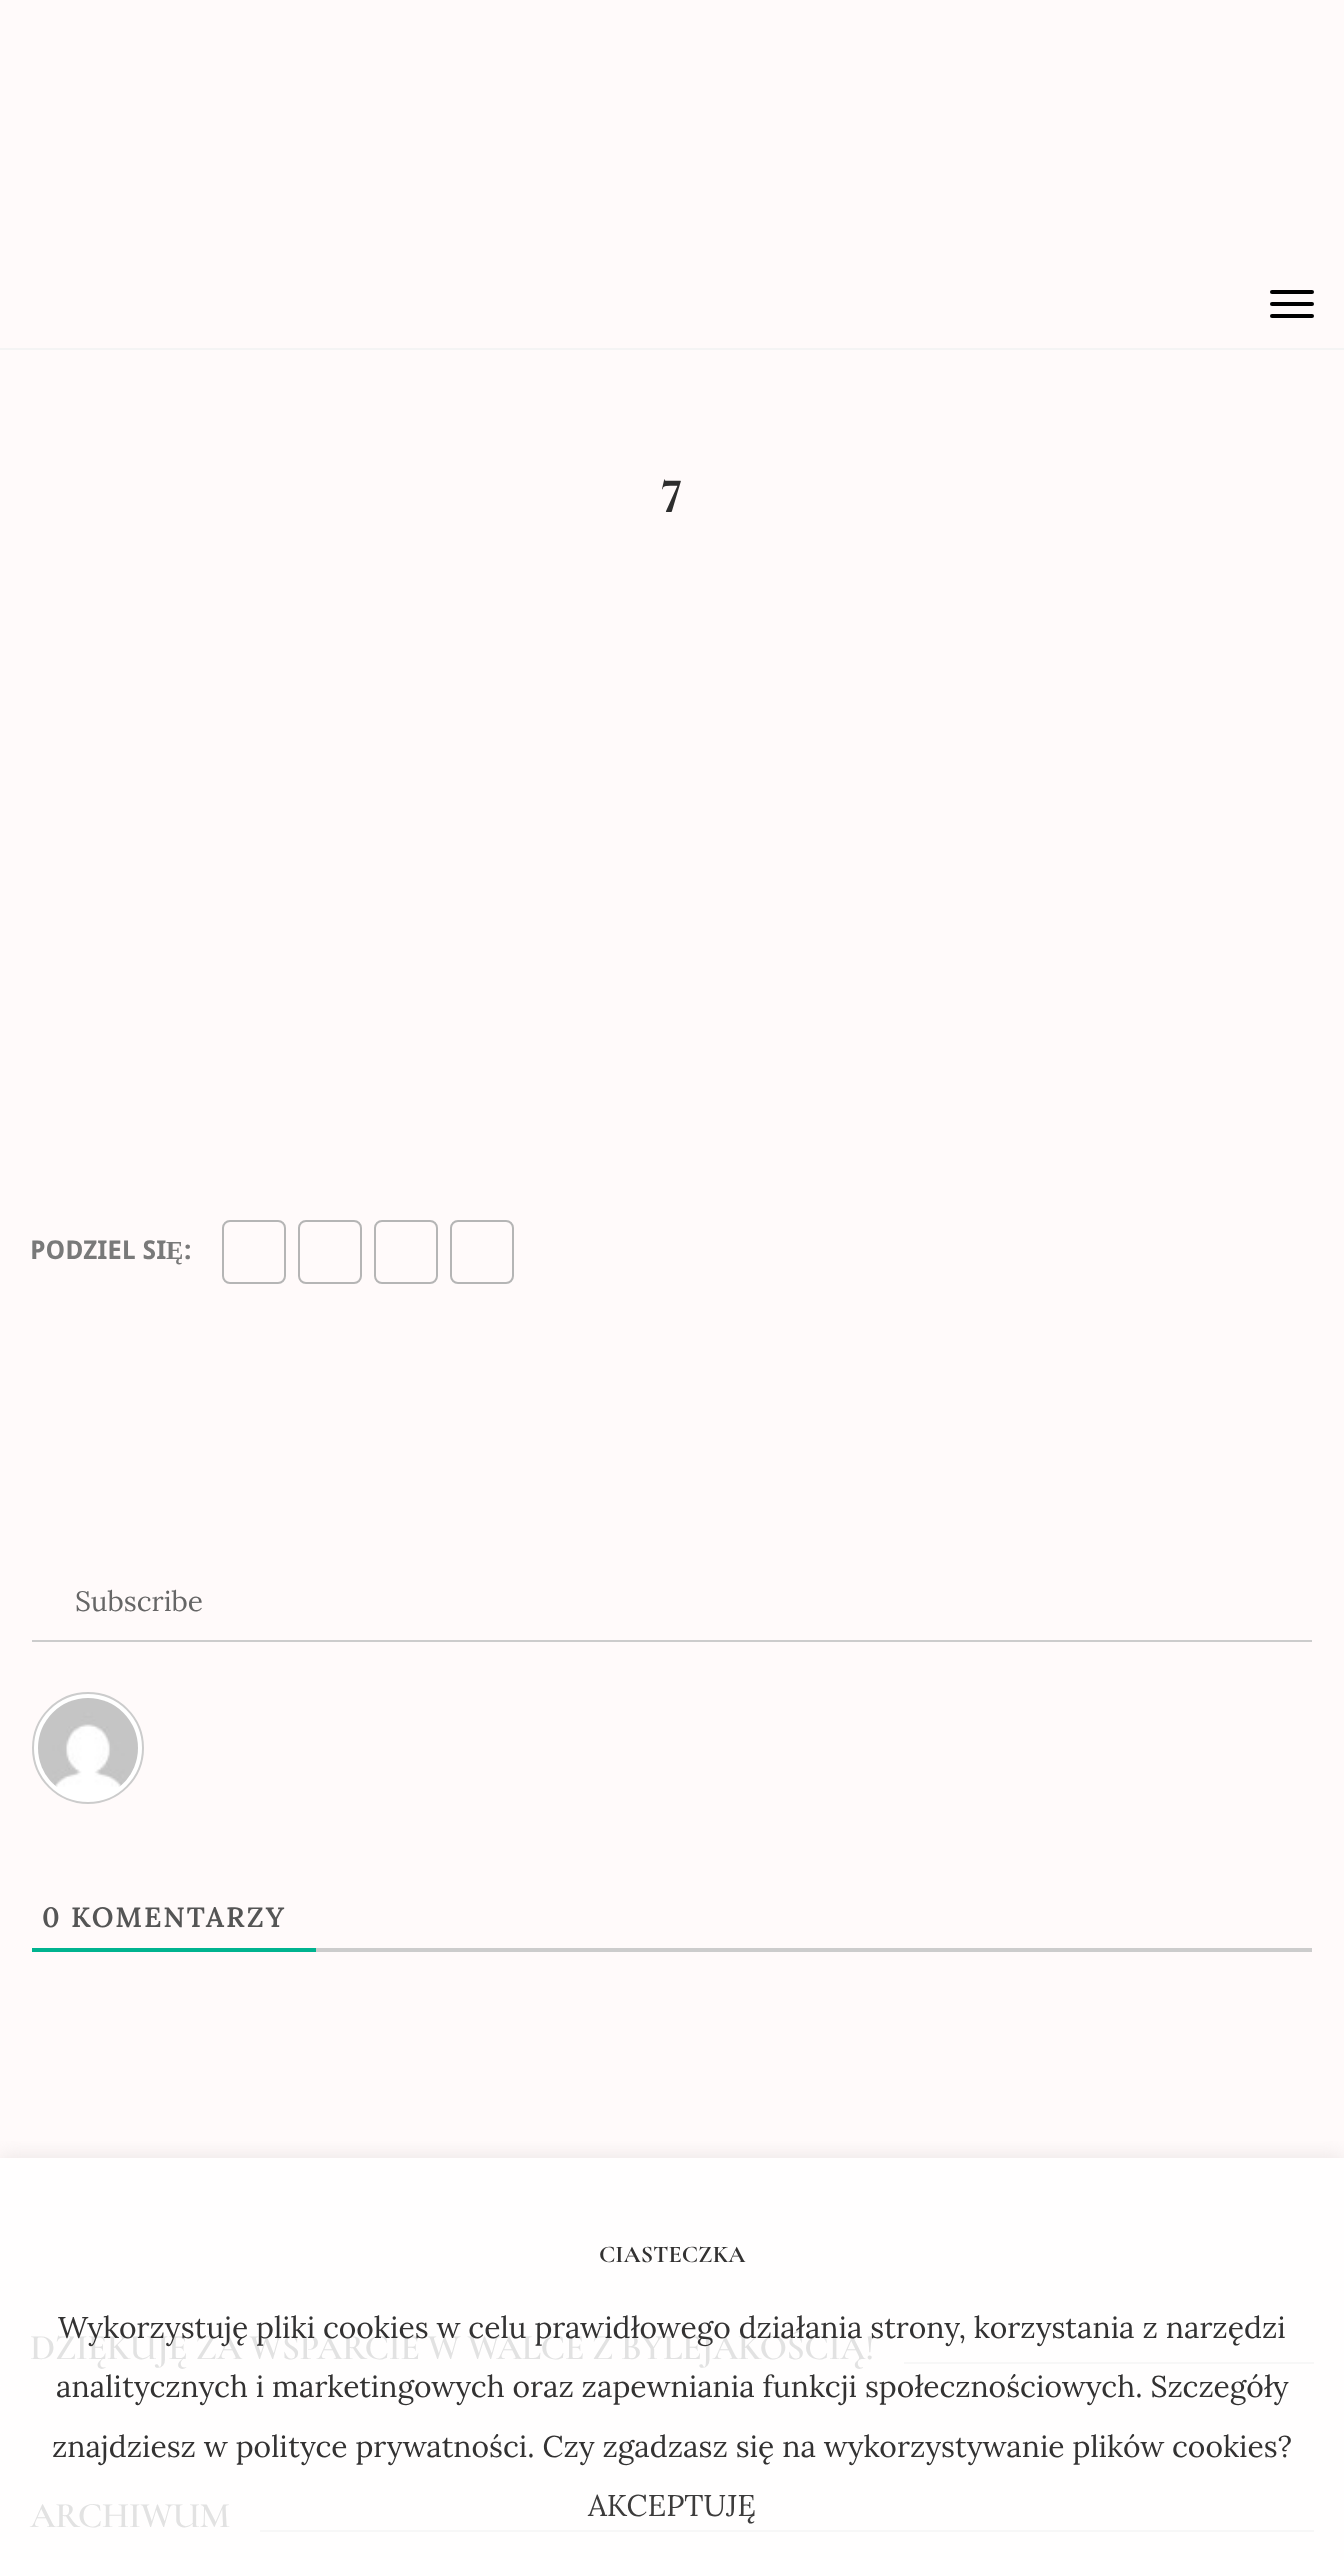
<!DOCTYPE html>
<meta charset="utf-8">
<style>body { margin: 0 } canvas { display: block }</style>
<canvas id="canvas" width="1344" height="2560"></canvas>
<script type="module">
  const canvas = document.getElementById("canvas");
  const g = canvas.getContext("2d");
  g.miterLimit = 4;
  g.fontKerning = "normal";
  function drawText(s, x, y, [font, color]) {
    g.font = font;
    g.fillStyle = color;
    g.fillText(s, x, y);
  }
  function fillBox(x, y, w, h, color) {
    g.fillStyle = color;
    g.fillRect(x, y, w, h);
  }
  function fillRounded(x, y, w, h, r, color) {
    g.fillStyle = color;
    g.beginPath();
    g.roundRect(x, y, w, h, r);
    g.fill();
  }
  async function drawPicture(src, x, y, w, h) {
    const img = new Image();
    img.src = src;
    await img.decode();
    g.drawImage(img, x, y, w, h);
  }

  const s1 = ["bold 50px Cormorant Infant", "#2D2D2D"];
  const s2 = ["bold 26px Droid Sans", "#797979"];
  const s3 = ["bold 26px Liberation Serif", "#797979"];
  const s4 = ["28px Lora", "#666666"];
  const s5 = ["600 28px Lora", "#555555"];
  const s6 = ["600 36px Cormorant Infant", "#E2E2E2"];
  const s7 = ["bold 24px Cormorant Infant", "#333232"];
  const s8 = ["30px Lora", "#333232"];
  const s9 = ["30px Lora", "#3D3C3C"];

  fillBox(0, 0, 1344, 2560, "#FFFAFA");
  fillBox(0, 2158, 1344, 402, "#FFFEFE");
  fillBox(0, 348, 1344, 2, "#F4F4F4");
  fillRounded(1270, 290, 44, 4, 2, "#000000");
  fillRounded(1270, 302, 44, 4, 2, "#000000");
  fillRounded(1270, 314, 44, 4, 2, "#000000");
  drawText("7", 661, 512, s1);
  drawText("PODZIEL SI", 30, 1259, s2);
  drawText("Ę", 166, 1259, s3);
  drawText(":", 184, 1259, s2);
  g.beginPath();
  g.roundRect(223, 1221, 62, 62, 7);
  g.strokeStyle = "#B5B5B5";
  g.lineWidth = 2;
  g.stroke();
  g.beginPath();
  g.roundRect(299, 1221, 62, 62, 7);
  g.stroke();
  g.beginPath();
  g.roundRect(375, 1221, 62, 62, 7);
  g.stroke();
  g.beginPath();
  g.roundRect(451, 1221, 62, 62, 7);
  g.stroke();
  fillBox(32, 1640, 1280, 2, "#CCCCCC");
  drawText("Subscribe", 75, 1611, s4);
  g.fillStyle = "#FFFFFF";
  g.beginPath();
  g.arc(88, 1748, 55, 0, Math.PI * 2);
  g.fill();
  g.strokeStyle = "#CCCCCC";
  g.stroke();
  await drawPicture("pic1.png", 38, 1698, 100, 89);
  fillBox(316, 1948, 996, 4, "#CCCCCC");
  fillBox(32, 1948, 284, 4, "#00B38F");
  g.letterSpacing = "2px";
  drawText("0 KOMENTARZY", 42, 1927, s5);
  fillBox(904, 2362, 410, 2, "#F7F7F7");
  g.letterSpacing = "-0.5px";
  drawText("DZIĘKUJĘ ZA WSPARCIE W WALCE Z BYLEJAKOŚCIĄ!", 30, 2359, s6);
  fillBox(260, 2530, 1054, 2, "#F7F7F7");
  drawText("ARCHIWUM", 30, 2527, s6);
  g.save();
  g.beginPath();
  g.rect(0, 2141, 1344, 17);
  g.clip();
  g.fillStyle = "rgba(189, 187, 187, 0.3)";
  g.filter = "blur(10px)";
  g.beginPath();
  g.rect(0, 2156, 1344, 402);
  g.fill();
  g.filter = "none";
  g.restore();
  g.letterSpacing = "0px";
  drawText("CIASTECZKA", 599, 2262, s7);
  drawText("Wykorzystuję pliki cookies w celu prawidłowego działania strony, korzystania z narzędzi", 58, 2338, s8);
  drawText("analitycznych i marketingowych oraz zapewniania funkcji społecznościowych. Szczegóły", 56, 2397, s8);
  drawText("znajdziesz w polityce prywatności. Czy zgadzasz się na wykorzystywanie plików cookies?", 52, 2457, s8);
  drawText("AKCEPTUJĘ", 588, 2516, s9);
</script>
